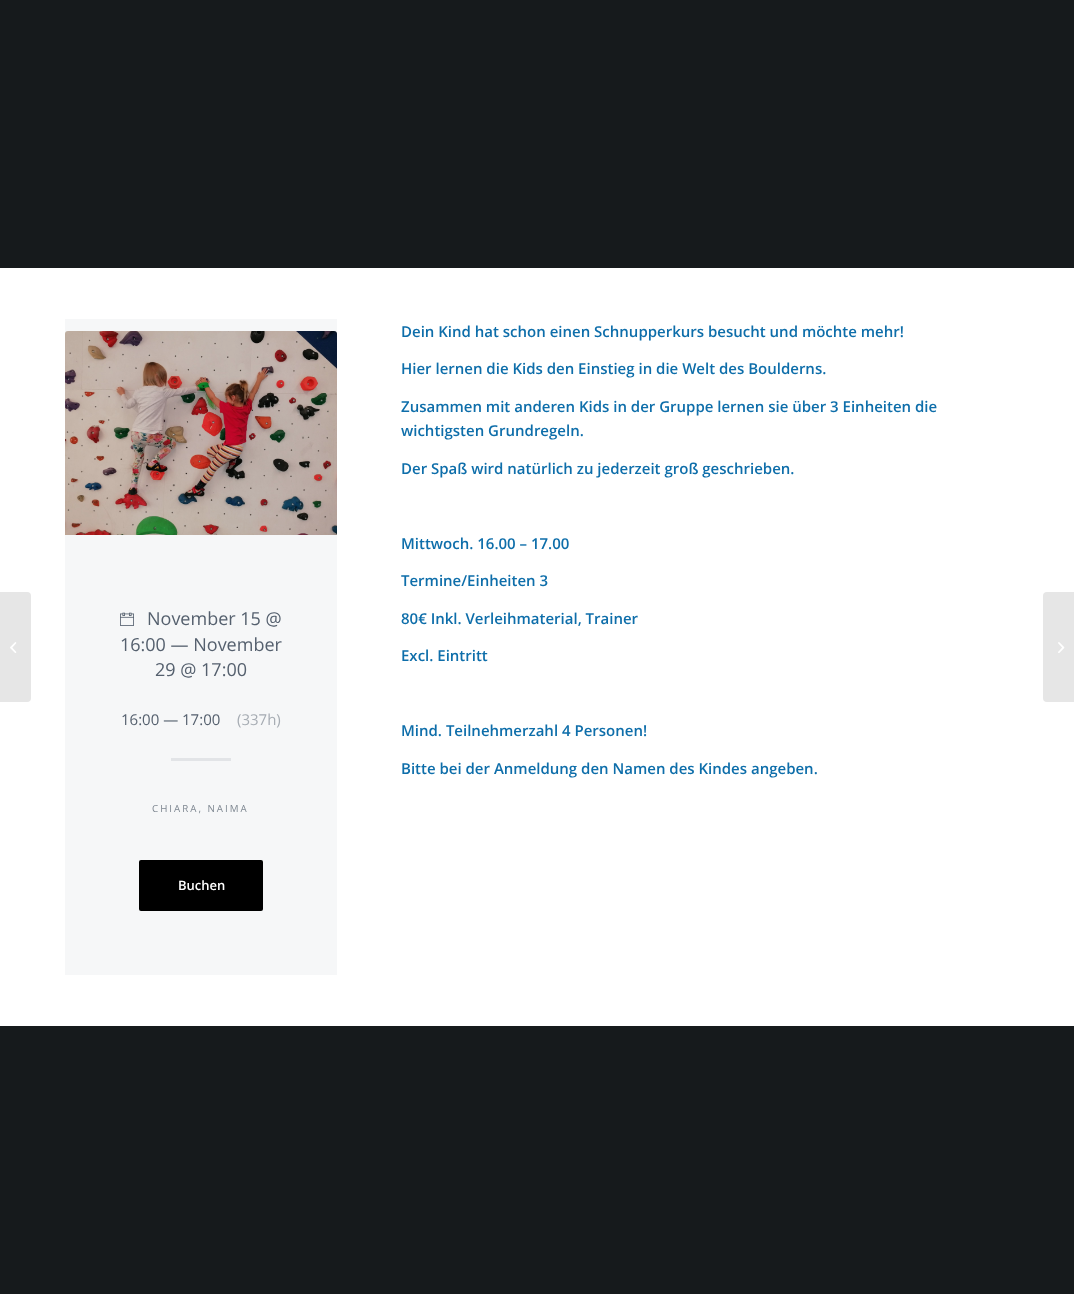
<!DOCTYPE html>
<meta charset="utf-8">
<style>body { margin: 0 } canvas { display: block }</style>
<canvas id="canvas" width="1074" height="1294"></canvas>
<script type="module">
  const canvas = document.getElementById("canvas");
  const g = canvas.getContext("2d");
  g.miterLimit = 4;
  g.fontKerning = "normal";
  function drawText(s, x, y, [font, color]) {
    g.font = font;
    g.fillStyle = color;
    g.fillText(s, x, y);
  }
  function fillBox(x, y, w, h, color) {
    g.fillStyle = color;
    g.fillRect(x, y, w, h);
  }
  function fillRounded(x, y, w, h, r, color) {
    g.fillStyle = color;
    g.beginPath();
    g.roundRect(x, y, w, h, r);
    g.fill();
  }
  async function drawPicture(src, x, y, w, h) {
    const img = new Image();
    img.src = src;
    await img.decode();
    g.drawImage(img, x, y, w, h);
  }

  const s1 = ["18px Open Sans", "#55606E"];
  const s2 = ["15px Open Sans", "#55606E"];
  const s3 = ["15px Open Sans", "#A6ACB3"];
  const s4 = ["9.75px Open Sans", "#7D8690"];
  const s5 = ["600 13px Open Sans", "#FFFFFF"];
  const s6 = ["600 15px Open Sans", "#0E6EAA"];

  fillBox(0, 0, 1074, 1294, "#161A1C");
  fillBox(0, 268, 1074, 758, "#FFFFFF");
  g.fillStyle = "#E6E6E6";
  g.beginPath();
  g.roundRect(0, 592, 31, 110, [0, 4, 4, 0]);
  g.fill();
  await drawPicture("pic1.png", 10, 642, 7, 11);
  await drawPicture("pic2.png", 65, 331, 272, 204);
  await drawPicture("pic3.png", 120, 612, 14, 14);
  fillBox(65, 319, 272, 656, "rgba(85, 96, 110, 0.05)");
  drawText("November 15 @", 147, 625, s1);
  drawText("16:00 — November", 120, 651, s1);
  drawText("29 @ 17:00", 155, 676, s1);
  drawText("16:00 — 17:00", 121, 725, s2);
  drawText("(337h)", 237, 725, s3);
  fillBox(171, 758, 60, 3, "#E2E4E7");
  g.letterSpacing = "2px";
  drawText("CHIARA, NAIMA", 152, 812, s4);
  fillRounded(139, 860, 124, 51, 2, "#000000");
  g.letterSpacing = "0px";
  drawText("Buchen", 178, 890, s5);
  drawText("Dein Kind hat schon einen Schnupperkurs besucht und möchte mehr!", 401, 337, s6);
  drawText("Hier lernen die Kids den Einstieg in die Welt des Boulderns.", 401, 374, s6);
  drawText("Zusammen mit anderen Kids in der Gruppe lernen sie über 3 Einheiten die", 401, 412, s6);
  drawText("wichtigsten Grundregeln.", 401, 436, s6);
  drawText("Der Spaß wird natürlich zu jederzeit groß geschrieben.", 401, 474, s6);
  drawText("Mittwoch. 16.00 – 17.00", 401, 549, s6);
  drawText("Termine/Einheiten 3", 401, 586, s6);
  drawText("80€ Inkl. Verleihmaterial, Trainer", 401, 624, s6);
  drawText("Excl. Eintritt", 401, 661, s6);
  drawText("Mind. Teilnehmerzahl 4 Personen!", 401, 736, s6);
  drawText("Bitte bei der Anmeldung den Namen des Kindes angeben.", 401, 774, s6);
  g.fillStyle = "#E6E6E6";
  g.beginPath();
  g.roundRect(1043, 592, 31, 110, [4, 0, 0, 4]);
  g.fill();
  await drawPicture("pic4.png", 1058, 642, 7, 11);
</script>
